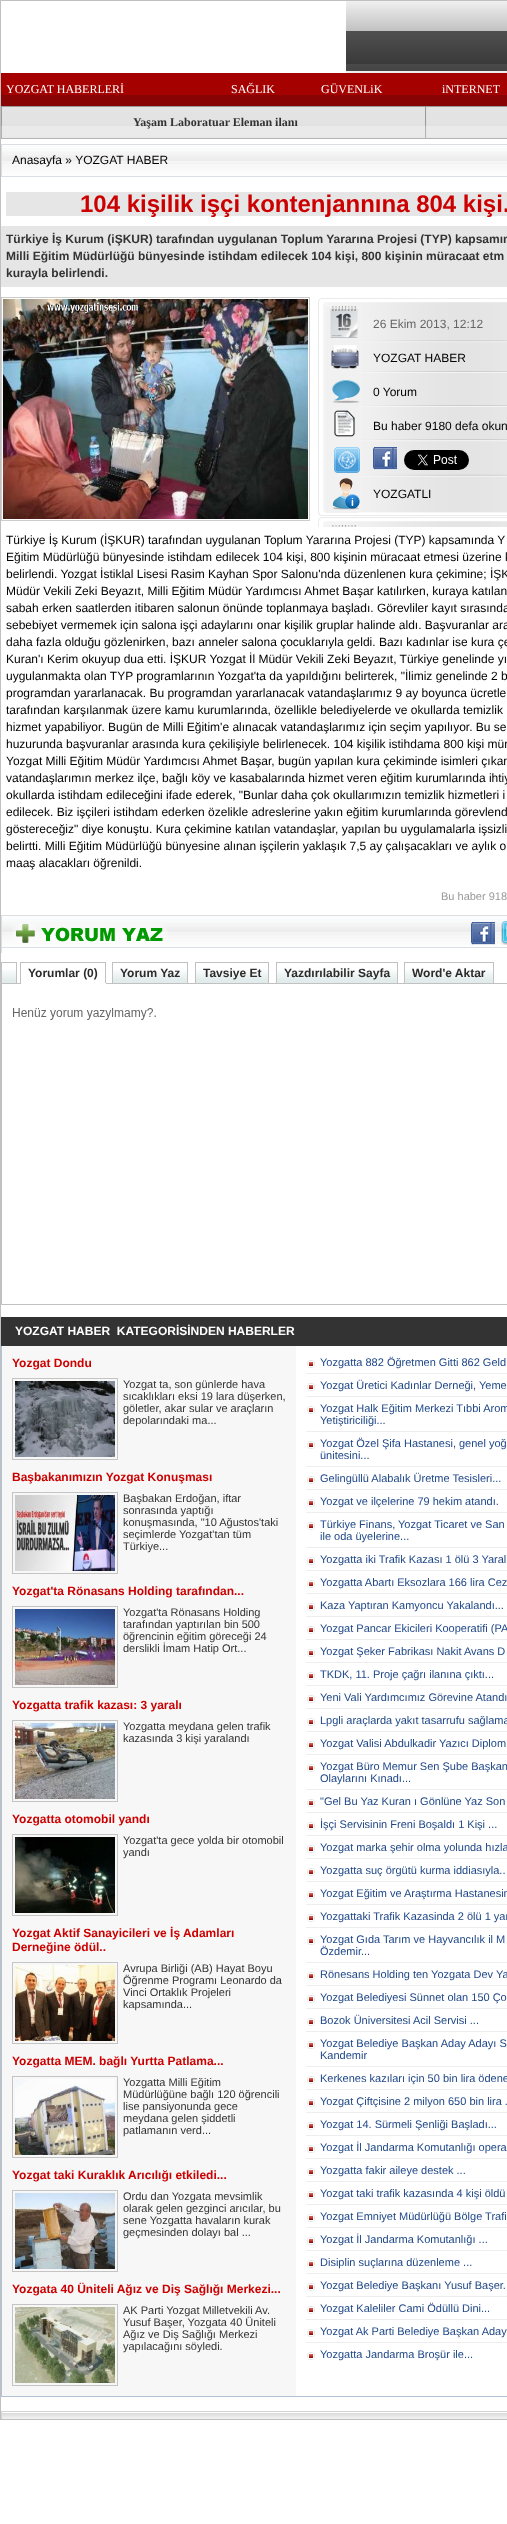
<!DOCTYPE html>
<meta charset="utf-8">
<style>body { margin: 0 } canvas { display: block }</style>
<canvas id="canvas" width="507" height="2524"></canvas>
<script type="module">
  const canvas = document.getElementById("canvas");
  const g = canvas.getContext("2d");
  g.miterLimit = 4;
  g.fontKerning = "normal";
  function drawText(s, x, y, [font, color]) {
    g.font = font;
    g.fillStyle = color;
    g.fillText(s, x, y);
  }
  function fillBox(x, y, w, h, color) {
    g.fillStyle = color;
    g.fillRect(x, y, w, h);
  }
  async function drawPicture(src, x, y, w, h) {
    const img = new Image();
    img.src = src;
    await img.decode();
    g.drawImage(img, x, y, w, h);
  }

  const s1 = ["12px Liberation Serif", "#FFFFFF"];
  const s2 = ["bold 12px Liberation Serif", "#333333"];
  const s3 = ["12px Liberation Sans", "#000000"];
  const s4 = ["bold 24px Liberation Sans", "#CC0000"];
  const s5 = ["bold 12px Liberation Sans", "#333333"];
  const s6 = ["12px Liberation Sans", "#666666"];
  const s7 = ["11px Liberation Sans", "#999999"];
  const s8 = ["bold 12px Liberation Sans", "#2D2B2B"];
  const s9 = ["bold 12px Liberation Sans", "#FFFFFF"];
  const s10 = ["bold 12px Liberation Sans", "#CC0000"];
  const s11 = ["11px Liberation Sans", "#333333"];
  const s12 = ["11px Liberation Sans", "#204888"];

  fillBox(0, 0, 507, 2524, "#FFFFFF");
  g.strokeStyle = "#C0C0C0";
  g.strokeRect(0.5, 0.5, 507, 2419);
  await drawPicture("pic1.png", 346, 1, 161, 72);
  await drawPicture("pic2.png", 1, 73, 506, 33);
  drawText("YOZGAT HABERLERİ", 6, 93, s1);
  drawText("SAĞLIK", 231, 93, s1);
  drawText("GÜVENLiK", 321, 93, s1);
  drawText("iNTERNET", 442, 93, s1);
  await drawPicture("pic3.png", 1, 106, 506, 33);
  drawText("Yaşam Laboratuar Eleman ilanı", 133, 126, s2);
  await drawPicture("pic4.png", 425, 107, 2, 31);
  await drawPicture("pic5.png", 2, 144, 505, 33);
  fillBox(1, 144, 1, 33, "#DCDDE1");
  drawText("Anasayfa » YOZGAT HABER", 12, 164, s3);
  fillBox(6, 192, 501, 24, "#E6E6E6");
  drawText("104 kişilik işçi kontenjannına 804 kişi.", 80, 212, s4);
  fillBox(1, 226, 506, 61, "#E6E6E6");
  drawText("Türkiye İş Kurum (iŞKUR) tarafından uygulanan Toplum Yararına Projesi (TYP) kapsamın", 6, 243, s5);
  drawText("Milli Eğitim Müdürlüğü bünyesinde istihdam edilecek 104 kişi, 800 kişinin müracaat etm", 6, 260, s5);
  drawText("kurayla belirlendi.", 6, 277, s5);
  g.strokeStyle = "#CCCCCC";
  g.strokeRect(1.5, 297.5, 308, 223);
  await drawPicture("pic6.png", 3, 299, 305, 220);
  await drawPicture("pic7.png", 318, 298, 189, 229);
  drawText("26 Ekim 2013, 12:12", 373, 328, s6);
  drawText("YOZGAT HABER", 373, 362, s3);
  drawText("0 Yorum", 373, 396, s3);
  drawText("Bu haber 9180 defa okun", 373, 430, s3);
  await drawPicture("pic8.png", 373, 447, 24, 23);
  await drawPicture("pic9.png", 404, 450, 65, 20);
  drawText("YOZGATLI", 373, 498, s3);
  drawText("Türkiye İş Kurum (İŞKUR) tarafından uygulanan Toplum Yararına Projesi (TYP) kapsamında Y", 6, 544, s3);
  drawText("Eğitim Müdürlüğü bünyesinde istihdam edilecek 104 kişi, 800 kişinin müracaat etmesi üzerine k", 6, 561, s3);
  drawText("belirlendi. Yozgat İstiklal Lisesi Rasim Kayhan Spor Salonu'nda düzenlenen kura çekimine; İŞK", 6, 578, s3);
  drawText("Müdür Vekili Zeki Beyazıt, Milli Eğitim Müdür Yardımcısı Ahmet Başar katılırken, kuraya katılan", 6, 595, s3);
  drawText("sabah erken saatlerden itibaren salonun önünde toplanmaya başladı. Görevliler kayıt sırasında", 6, 612, s3);
  drawText("sebebiyet vermemek için salona işçi adaylarını onar kişilik gruplar halinde aldı. Başvuranlar ara", 6, 629, s3);
  drawText("daha fazla olduğu gözlenirken, bazı anneler salona çocuklarıyla geldi. Bazı kadınlar ise kura çe", 6, 646, s3);
  drawText("Kuran'ı Kerim okuyup dua etti. İŞKUR Yozgat İl Müdür Vekili Zeki Beyazıt, Türkiye genelinde yı", 6, 663, s3);
  drawText("uygulanmakta olan TYP programlarının Yozgat'ta da yapıldığını belirterek, \"İlimiz genelinde 2 b", 6, 680, s3);
  drawText("programdan yararlanacak. Bu programdan yararlanacak vatandaşlarımız 9 ay boyunca ücretle", 6, 697, s3);
  drawText("tarafından karşılanmak üzere kamu kurumlarında, özellikle belediyelerde ve okullarda temizlik", 6, 714, s3);
  drawText("hizmet yapabiliyor. Bugün de Milli Eğitim'e alınacak vatandaşlarımız için seçim yapılıyor. Bu se", 6, 731, s3);
  drawText("huzurunda başvuranlar arasında kura çekilişiyle belirlenecek. 104 kişilik istihdama 800 kişi mür", 6, 748, s3);
  drawText("Yozgat Milli Eğitim Müdür Yardımcısı Ahmet Başar, bugün yapılan kura çekiminde isimleri çıkan", 6, 765, s3);
  drawText("vatandaşlarımın merkez ilçe, bağlı köy ve kasabalarında hizmet veren eğitim kurumlarında ihtiy", 6, 782, s3);
  drawText("okullarda istihdam edileceğini ifade ederek, \"Bunlar daha çok okullarımızın temizlik hizmetleri i", 6, 799, s3);
  drawText("edilecek. Biz işçileri istihdam ederken özelikle adreslerine yakın eğitim kurumlarında görevlend", 6, 816, s3);
  drawText("göstereceğiz\" diye konuştu. Kura çekimine katılan vatandaşlar, yapılan bu uygulamalarla işsizli", 6, 833, s3);
  drawText("belirtti. Milli Eğitim Müdürlüğü bünyesine alınan işçilerin yaklaşık 7,5 ay çalışacakları ve aylık o", 6, 850, s3);
  drawText("maaş alacakları öğrenildi.", 6, 867, s3);
  drawText("Bu haber 918", 441, 900, s7);
  await drawPicture("pic5.png", 2, 915, 505, 33);
  fillBox(1, 915, 1, 38, "#DCDDE1");
  await drawPicture("pic10.png", 12, 923, 156, 20);
  await drawPicture("pic8.png", 471, 922, 24, 23);
  await drawPicture("pic11.png", 501, 921, 6, 24);
  await drawPicture("pic12.png", 2, 970, 14, 13);
  drawText("Yorumlar (0)", 28, 977, s8);
  g.strokeStyle = "#C1C1C1";
  g.strokeRect(1.5, 983.5, 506, 321);
  g.strokeRect(1.5, 962.5, 15, 21);
  fillBox(20, 962, 86, 1, "#C1C1C1");
  fillBox(105, 962, 1, 22, "#C1C1C1");
  fillBox(20, 983, 86, 1, "#FFFFFF");
  fillBox(20, 962, 1, 22, "#C1C1C1");
  await drawPicture("pic13.png", 113, 970, 74, 13);
  g.strokeRect(112.5, 962.5, 75, 21);
  drawText("Yorum Yaz", 120, 977, s8);
  await drawPicture("pic14.png", 196, 970, 72, 13);
  g.strokeRect(195.5, 962.5, 73, 21);
  drawText("Tavsiye Et", 203, 977, s8);
  await drawPicture("pic15.png", 277, 970, 120, 13);
  g.strokeRect(276.5, 962.5, 121, 21);
  drawText("Yazdırılabilir Sayfa", 284, 977, s8);
  await drawPicture("pic16.png", 405, 970, 88, 13);
  g.strokeRect(404.5, 962.5, 89, 21);
  drawText("Word'e Aktar", 412, 977, s8);
  await drawPicture("pic17.png", 13, 1008, 143, 12);
  fillBox(1, 1317, 506, 29, "#333333");
  drawText("YOZGAT HABER  KATEGORİSİNDEN HABERLER", 15, 1335, s9);
  fillBox(1, 2396, 506, 1, "#B1C3D4");
  fillBox(1, 1346, 1, 1051, "#B1C3D4");
  fillBox(2, 1346, 294, 1050, "#F7F7F7");
  drawText("Yozgat Dondu", 12, 1367, s10);
  g.strokeStyle = "#C4C4C4";
  g.strokeRect(12.5, 1378.5, 105, 81);
  await drawPicture("pic18.png", 15, 1381, 100, 76);
  drawText("Yozgat ta, son günlerde hava", 123, 1388, s11);
  drawText("sıcaklıkları eksi 19 lara düşerken,", 123, 1400, s11);
  drawText("göletler, akar sular ve araçların", 123, 1412, s11);
  drawText("depolarındaki ma...", 123, 1424, s11);
  drawText("Başbakanımızın Yozgat Konuşması", 12, 1481, s10);
  g.strokeRect(12.5, 1492.5, 105, 81);
  await drawPicture("pic19.png", 15, 1495, 100, 76);
  drawText("Başbakan Erdoğan, iftar", 123, 1502, s11);
  drawText("sonrasında yaptığı", 123, 1514, s11);
  drawText("konuşmasında, \"10 Ağustos'taki", 123, 1526, s11);
  drawText("seçimlerde Yozgat'tan tüm", 123, 1538, s11);
  drawText("Türkiye...", 123, 1550, s11);
  drawText("Yozgat'ta Rönasans Holding tarafından...", 12, 1595, s10);
  g.strokeRect(12.5, 1606.5, 105, 81);
  await drawPicture("pic20.png", 15, 1609, 100, 76);
  drawText("Yozgat'ta Rönasans Holding", 123, 1616, s11);
  drawText("tarafından yaptırılan bin 500", 123, 1628, s11);
  drawText("öğrencinin eğitim göreceği 24", 123, 1640, s11);
  drawText("derslikli İmam Hatip Ort...", 123, 1652, s11);
  drawText("Yozgatta trafik kazası: 3 yaralı", 12, 1709, s10);
  g.strokeRect(12.5, 1720.5, 105, 81);
  await drawPicture("pic21.png", 15, 1723, 100, 76);
  drawText("Yozgatta meydana gelen trafik", 123, 1730, s11);
  drawText("kazasında 3 kişi yaralandı", 123, 1742, s11);
  drawText("Yozgatta otomobil yandı", 12, 1823, s10);
  g.strokeRect(12.5, 1834.5, 105, 81);
  await drawPicture("pic22.png", 15, 1837, 100, 76);
  drawText("Yozgat'ta gece yolda bir otomobil", 123, 1844, s11);
  drawText("yandı", 123, 1856, s11);
  drawText("Yozgat Aktif Sanayicileri ve İş Adamları", 12, 1937, s10);
  drawText("Derneğine ödül..", 12, 1951, s10);
  g.strokeRect(12.5, 1962.5, 105, 81);
  await drawPicture("pic23.png", 15, 1965, 100, 76);
  drawText("Avrupa Birliği (AB) Hayat Boyu", 123, 1972, s11);
  drawText("Öğrenme Programı Leonardo da", 123, 1984, s11);
  drawText("Vinci Ortaklık Projeleri", 123, 1996, s11);
  drawText("kapsamında...", 123, 2008, s11);
  drawText("Yozgatta MEM. bağlı Yurtta Patlama...", 12, 2065, s10);
  g.strokeRect(12.5, 2076.5, 105, 81);
  await drawPicture("pic24.png", 15, 2079, 100, 76);
  drawText("Yozgatta Milli Eğitim", 123, 2086, s11);
  drawText("Müdürlüğüne bağlı 120 öğrencili", 123, 2098, s11);
  drawText("lise pansiyonunda gece", 123, 2110, s11);
  drawText("meydana gelen şiddetli", 123, 2122, s11);
  drawText("patlamanın verd...", 123, 2134, s11);
  drawText("Yozgat taki Kuraklık Arıcılığı etkiledi...", 12, 2179, s10);
  g.strokeRect(12.5, 2190.5, 105, 81);
  await drawPicture("pic25.png", 15, 2193, 100, 76);
  drawText("Ordu dan Yozgata mevsimlik", 123, 2200, s11);
  drawText("olarak gelen gezginci arıcılar, bu", 123, 2212, s11);
  drawText("sene Yozgatta havaların kurak", 123, 2224, s11);
  drawText("geçmesinden dolayı bal ...", 123, 2236, s11);
  drawText("Yozgata 40 Üniteli Ağız ve Diş Sağlığı Merkezi...", 12, 2293, s10);
  g.strokeRect(12.5, 2304.5, 105, 81);
  await drawPicture("pic26.png", 15, 2307, 100, 76);
  drawText("AK Parti Yozgat Milletvekili Av.", 123, 2314, s11);
  drawText("Yusuf Başer, Yozgata 40 Üniteli", 123, 2326, s11);
  drawText("Ağız ve Diş Sağlığı Merkezi", 123, 2338, s11);
  drawText("yapılacağını söyledi.", 123, 2350, s11);
  await drawPicture("pic27.png", 307, 1360, 8, 8);
  fillBox(306, 1373, 201, 1, "#EEEEEE");
  drawText("Yozgatta 882 Öğretmen Gitti 862 Geld", 320, 1366, s12);
  await drawPicture("pic27.png", 307, 1383, 8, 8);
  fillBox(306, 1396, 201, 1, "#EEEEEE");
  drawText("Yozgat Üretici Kadınlar Derneği, Yeme", 320, 1389, s12);
  await drawPicture("pic27.png", 307, 1406, 8, 8);
  fillBox(306, 1431, 201, 1, "#EEEEEE");
  drawText("Yozgat Halk Eğitim Merkezi Tıbbi Arom", 320, 1412, s12);
  drawText("Yetiştiriciliği...", 320, 1424, s12);
  await drawPicture("pic27.png", 307, 1441, 8, 8);
  fillBox(306, 1466, 201, 1, "#EEEEEE");
  drawText("Yozgat Özel Şifa Hastanesi, genel yoğ", 320, 1447, s12);
  drawText("ünitesini...", 320, 1459, s12);
  await drawPicture("pic27.png", 307, 1476, 8, 8);
  fillBox(306, 1489, 201, 1, "#EEEEEE");
  drawText("Gelingüllü Alabalık Üretme Tesisleri...", 320, 1482, s12);
  await drawPicture("pic27.png", 307, 1499, 8, 8);
  fillBox(306, 1512, 201, 1, "#EEEEEE");
  drawText("Yozgat ve ilçelerine 79 hekim atandı.", 320, 1505, s12);
  await drawPicture("pic27.png", 307, 1522, 8, 8);
  fillBox(306, 1547, 201, 1, "#EEEEEE");
  drawText("Türkiye Finans, Yozgat Ticaret ve San", 320, 1528, s12);
  drawText("ile oda üyelerine...", 320, 1540, s12);
  await drawPicture("pic27.png", 307, 1557, 8, 8);
  fillBox(306, 1570, 201, 1, "#EEEEEE");
  drawText("Yozgatta iki Trafik Kazası 1 ölü 3 Yaral", 320, 1563, s12);
  await drawPicture("pic27.png", 307, 1580, 8, 8);
  fillBox(306, 1593, 201, 1, "#EEEEEE");
  drawText("Yozgatta Abartı Eksozlara 166 lira Cez", 320, 1586, s12);
  await drawPicture("pic27.png", 307, 1603, 8, 8);
  fillBox(306, 1616, 201, 1, "#EEEEEE");
  drawText("Kaza Yaptıran Kamyoncu Yakalandı...", 320, 1609, s12);
  await drawPicture("pic27.png", 307, 1626, 8, 8);
  fillBox(306, 1639, 201, 1, "#EEEEEE");
  drawText("Yozgat Pancar Ekicileri Kooperatifi (PA", 320, 1632, s12);
  await drawPicture("pic27.png", 307, 1649, 8, 8);
  fillBox(306, 1662, 201, 1, "#EEEEEE");
  drawText("Yozgat Şeker Fabrikası Nakit Avans D", 320, 1655, s12);
  await drawPicture("pic27.png", 307, 1672, 8, 8);
  fillBox(306, 1685, 201, 1, "#EEEEEE");
  drawText("TKDK, 11. Proje çağrı ilanına çıktı...", 320, 1678, s12);
  await drawPicture("pic27.png", 307, 1695, 8, 8);
  fillBox(306, 1708, 201, 1, "#EEEEEE");
  drawText("Yeni Vali Yardımcımız Görevine Atandı", 320, 1701, s12);
  await drawPicture("pic27.png", 307, 1718, 8, 8);
  fillBox(306, 1731, 201, 1, "#EEEEEE");
  drawText("Lpgli araçlarda yakıt tasarrufu sağlama", 320, 1724, s12);
  await drawPicture("pic27.png", 307, 1741, 8, 8);
  fillBox(306, 1754, 201, 1, "#EEEEEE");
  drawText("Yozgat Valisi Abdulkadir Yazıcı Diplom", 320, 1747, s12);
  await drawPicture("pic27.png", 307, 1764, 8, 8);
  fillBox(306, 1789, 201, 1, "#EEEEEE");
  drawText("Yozgat Büro Memur Sen Şube Başkan", 320, 1770, s12);
  drawText("Olaylarını Kınadı...", 320, 1782, s12);
  await drawPicture("pic27.png", 307, 1799, 8, 8);
  fillBox(306, 1812, 201, 1, "#EEEEEE");
  drawText("\"Gel Bu Yaz Kuran ı Gönlüne Yaz Son", 320, 1805, s12);
  await drawPicture("pic27.png", 307, 1822, 8, 8);
  fillBox(306, 1835, 201, 1, "#EEEEEE");
  drawText("İşçi Servisinin Freni Boşaldı 1 Kişi ...", 320, 1828, s12);
  await drawPicture("pic27.png", 307, 1845, 8, 8);
  fillBox(306, 1858, 201, 1, "#EEEEEE");
  drawText("Yozgat marka şehir olma yolunda hızla", 320, 1851, s12);
  await drawPicture("pic27.png", 307, 1868, 8, 8);
  fillBox(306, 1881, 201, 1, "#EEEEEE");
  drawText("Yozgatta suç örgütü kurma iddiasıyla..", 320, 1874, s12);
  await drawPicture("pic27.png", 307, 1891, 8, 8);
  fillBox(306, 1904, 201, 1, "#EEEEEE");
  drawText("Yozgat Eğitim ve Araştırma Hastanesin", 320, 1897, s12);
  await drawPicture("pic27.png", 307, 1914, 8, 8);
  fillBox(306, 1927, 201, 1, "#EEEEEE");
  drawText("Yozgattaki Trafik Kazasinda 2 ölü 1 yar", 320, 1920, s12);
  await drawPicture("pic27.png", 307, 1937, 8, 8);
  fillBox(306, 1962, 201, 1, "#EEEEEE");
  drawText("Yozgat Gıda Tarım ve Hayvancılık il M", 320, 1943, s12);
  drawText("Özdemir...", 320, 1955, s12);
  await drawPicture("pic27.png", 307, 1972, 8, 8);
  fillBox(306, 1985, 201, 1, "#EEEEEE");
  drawText("Rönesans Holding ten Yozgata Dev Ya", 320, 1978, s12);
  await drawPicture("pic27.png", 307, 1995, 8, 8);
  fillBox(306, 2008, 201, 1, "#EEEEEE");
  drawText("Yozgat Belediyesi Sünnet olan 150 Ço", 320, 2001, s12);
  await drawPicture("pic27.png", 307, 2018, 8, 8);
  fillBox(306, 2031, 201, 1, "#EEEEEE");
  drawText("Bozok Üniversitesi Acil Servisi ...", 320, 2024, s12);
  await drawPicture("pic27.png", 307, 2041, 8, 8);
  fillBox(306, 2066, 201, 1, "#EEEEEE");
  drawText("Yozgat Belediye Başkan Aday Adayı S", 320, 2047, s12);
  drawText("Kandemir", 320, 2059, s12);
  await drawPicture("pic27.png", 307, 2076, 8, 8);
  fillBox(306, 2089, 201, 1, "#EEEEEE");
  drawText("Kerkenes kazıları için 50 bin lira ödene", 320, 2082, s12);
  await drawPicture("pic27.png", 307, 2099, 8, 8);
  fillBox(306, 2112, 201, 1, "#EEEEEE");
  drawText("Yozgat Çiftçisine 2 milyon 650 bin lira .", 320, 2105, s12);
  await drawPicture("pic27.png", 307, 2122, 8, 8);
  fillBox(306, 2135, 201, 1, "#EEEEEE");
  drawText("Yozgat 14. Sürmeli Şenliği Başladı...", 320, 2128, s12);
  await drawPicture("pic27.png", 307, 2145, 8, 8);
  fillBox(306, 2158, 201, 1, "#EEEEEE");
  drawText("Yozgat İl Jandarma Komutanlığı opera", 320, 2151, s12);
  await drawPicture("pic27.png", 307, 2168, 8, 8);
  fillBox(306, 2181, 201, 1, "#EEEEEE");
  drawText("Yozgatta fakir aileye destek ...", 320, 2174, s12);
  await drawPicture("pic27.png", 307, 2191, 8, 8);
  fillBox(306, 2204, 201, 1, "#EEEEEE");
  drawText("Yozgat taki trafik kazasında 4 kişi öldü", 320, 2197, s12);
  await drawPicture("pic27.png", 307, 2214, 8, 8);
  fillBox(306, 2227, 201, 1, "#EEEEEE");
  drawText("Yozgat Emniyet Müdürlüğü Bölge Trafi", 320, 2220, s12);
  await drawPicture("pic27.png", 307, 2237, 8, 8);
  fillBox(306, 2250, 201, 1, "#EEEEEE");
  drawText("Yozgat İl Jandarma Komutanlığı ...", 320, 2243, s12);
  await drawPicture("pic27.png", 307, 2260, 8, 8);
  fillBox(306, 2273, 201, 1, "#EEEEEE");
  drawText("Disiplin suçlarına düzenleme ...", 320, 2266, s12);
  await drawPicture("pic27.png", 307, 2283, 8, 8);
  fillBox(306, 2296, 201, 1, "#EEEEEE");
  drawText("Yozgat Belediye Başkanı Yusuf Başer.", 320, 2289, s12);
  await drawPicture("pic27.png", 307, 2306, 8, 8);
  fillBox(306, 2319, 201, 1, "#EEEEEE");
  drawText("Yozgat Kaleliler Cami Ödüllü Dini...", 320, 2312, s12);
  await drawPicture("pic27.png", 307, 2329, 8, 8);
  fillBox(306, 2342, 201, 1, "#EEEEEE");
  drawText("Yozgat Ak Parti Belediye Başkan Aday", 320, 2335, s12);
  await drawPicture("pic27.png", 307, 2352, 8, 8);
  drawText("Yozgatta Jandarma Broşür ile...", 320, 2358, s12);
  await drawPicture("pic28.png", 2, 2411, 505, 8);
  fillBox(1, 2411, 1, 8, "#D4D4D4");
</script>
